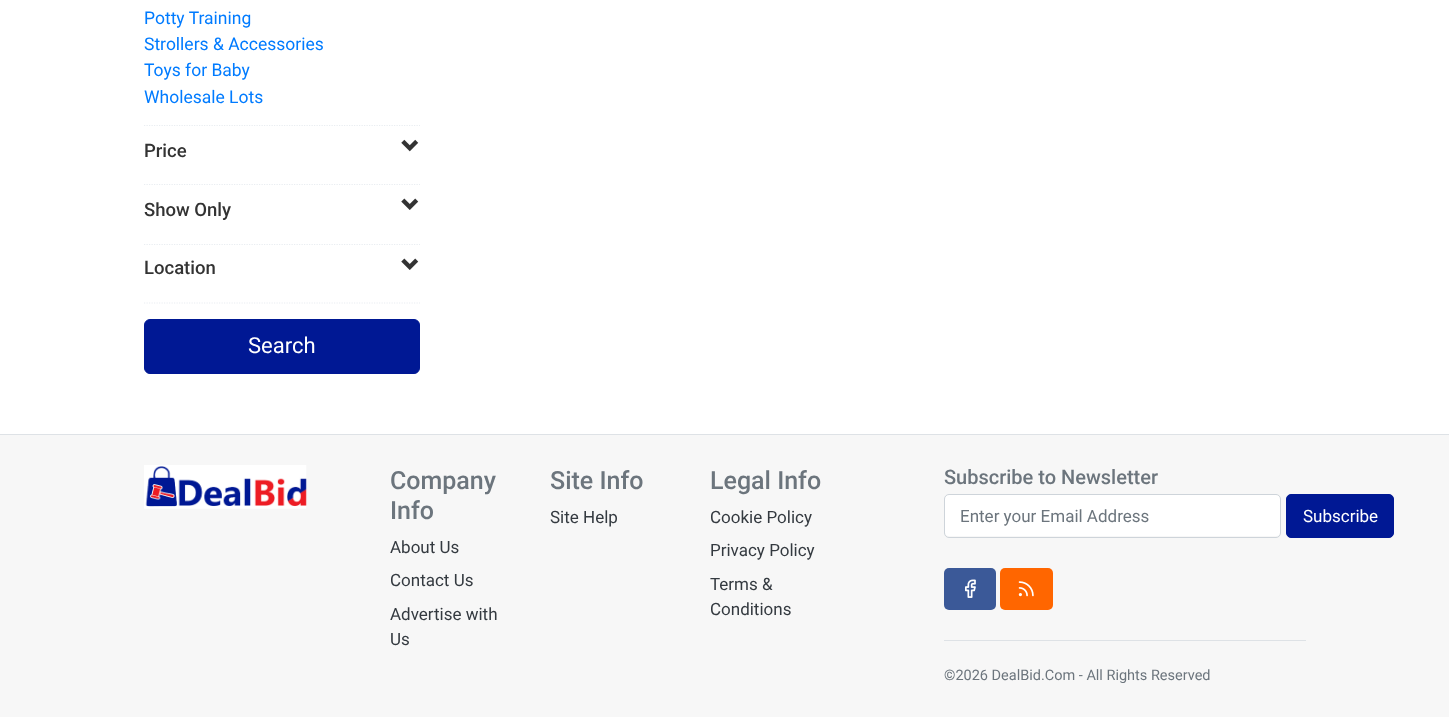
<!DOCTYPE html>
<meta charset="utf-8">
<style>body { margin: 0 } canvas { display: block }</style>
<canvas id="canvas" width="1449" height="717"></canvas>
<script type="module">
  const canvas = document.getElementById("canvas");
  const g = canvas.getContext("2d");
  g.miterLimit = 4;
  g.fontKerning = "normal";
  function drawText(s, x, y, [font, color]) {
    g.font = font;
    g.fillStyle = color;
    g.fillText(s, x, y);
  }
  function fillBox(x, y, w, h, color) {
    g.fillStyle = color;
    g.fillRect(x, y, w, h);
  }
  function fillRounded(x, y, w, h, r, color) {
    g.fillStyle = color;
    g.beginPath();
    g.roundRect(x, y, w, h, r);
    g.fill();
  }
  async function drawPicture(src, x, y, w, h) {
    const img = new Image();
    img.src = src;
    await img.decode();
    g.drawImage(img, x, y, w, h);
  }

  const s1 = ["17.5px Roboto", "#007BFF"];
  const s2 = ["500 18.5px Roboto", "#333333"];
  const s3 = ["22px Roboto", "#FFFFFF"];
  const s4 = ["500 25px Roboto", "#6C757D"];
  const s5 = ["17px Roboto", "#343A40"];
  const s6 = ["500 20px Roboto", "#6C757D"];
  const s7 = ["17px Roboto", "#6C757D"];
  const s8 = ["17px Roboto", "#FFFFFF"];
  const s9 = ["14.5px Roboto", "#6C757D"];

  fillBox(0, 0, 1449, 717, "#FFFFFF");
  drawText("Potty Training", 144, 24, s1);
  drawText("Strollers & Accessories", 144, 50, s1);
  drawText("Toys for Baby", 144, 76, s1);
  drawText("Wholesale Lots", 144, 103, s1);
  g.beginPath();
  g.moveTo(144, 125.5);
  g.lineTo(420, 125.5);
  g.strokeStyle = "#E9EDF1";
  g.lineWidth = 1.2;
  g.setLineDash([1.25, 1.25]);
  g.stroke();
  drawText("Price", 144, 157, s2);
  await drawPicture("pic1.png", 401, 139, 18, 13);
  g.beginPath();
  g.moveTo(144, 184.5);
  g.lineTo(420, 184.5);
  g.stroke();
  drawText("Show Only", 144, 216, s2);
  await drawPicture("pic2.png", 401, 198, 18, 12);
  g.beginPath();
  g.moveTo(144, 244.5);
  g.lineTo(420, 244.5);
  g.stroke();
  drawText("Location", 144, 274, s2);
  await drawPicture("pic2.png", 401, 258, 18, 12);
  g.beginPath();
  g.moveTo(144, 303);
  g.lineTo(420, 303);
  g.stroke();
  g.fillStyle = "#001894";
  g.beginPath();
  g.roundRect(144.5, 319.5, 275, 54, 5.5);
  g.fill();
  g.strokeStyle = "#001894";
  g.lineWidth = 1;
  g.setLineDash([]);
  g.stroke();
  drawText("Search", 248, 353, s3);
  fillBox(0, 435, 1449, 282, "#F7F7F7");
  fillBox(0, 434, 1449, 1, "#DEE2E6");
  await drawPicture("pic3.png", 144, 465, 163, 44);
  drawText("Company", 390, 489, s4);
  drawText("Info", 390, 519, s4);
  drawText("About Us", 390, 553, s5);
  drawText("Contact Us", 390, 586, s5);
  drawText("Advertise with", 390, 620, s5);
  drawText("Us", 390, 645, s5);
  drawText("Site Info", 550, 489, s4);
  drawText("Site Help", 550, 523, s5);
  drawText("Legal Info", 710, 489, s4);
  drawText("Cookie Policy", 710, 523, s5);
  drawText("Privacy Policy", 710, 556, s5);
  drawText("Terms &", 710, 590, s5);
  drawText("Conditions", 710, 615, s5);
  drawText("Subscribe to Newsletter", 944, 484, s6);
  fillRounded(945, 495, 335, 41, 4, "#FFFFFF");
  g.beginPath();
  g.roundRect(944.5, 494.5, 336, 43, 4.5);
  g.strokeStyle = "#CED4DA";
  g.stroke();
  drawText("Enter your Email Address", 960, 522, s7);
  g.fillStyle = "#001894";
  g.beginPath();
  g.roundRect(1286.5, 494.5, 107, 43, 4.5);
  g.fill();
  g.strokeStyle = "#001894";
  g.stroke();
  drawText("Subscribe", 1303, 522, s8);
  fillRounded(944, 568, 52, 42, 5, "#3B5998");
  await drawPicture("pic4.png", 965, 579, 11, 19);
  fillRounded(1000, 568, 53, 42, 5, "#FF6600");
  await drawPicture("pic5.png", 1018, 581, 16, 16);
  fillBox(944, 640, 362, 1, "#DEE2E6");
  drawText("©2026 DealBid.Com - All Rights Reserved", 944, 680, s9);
</script>
